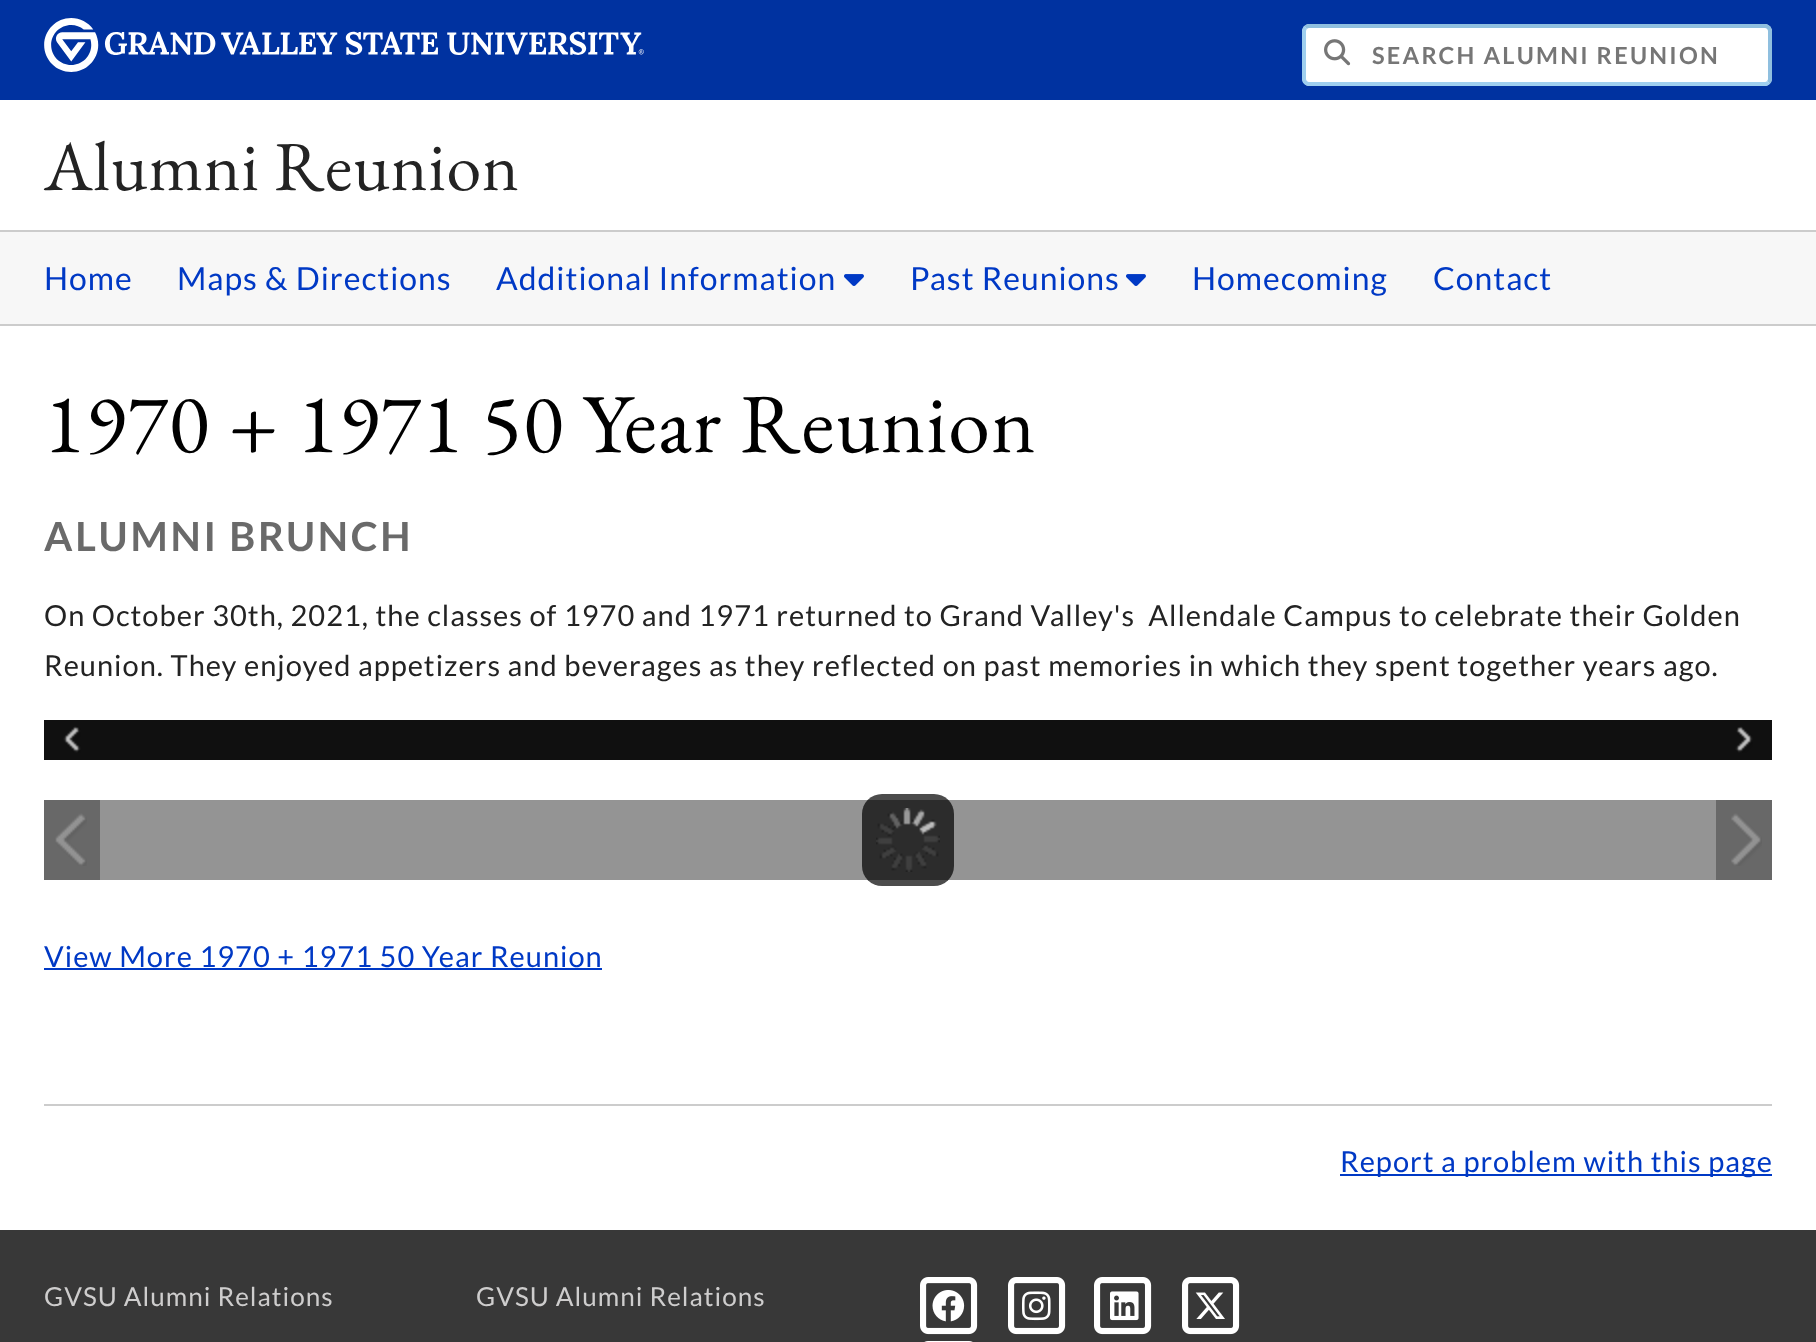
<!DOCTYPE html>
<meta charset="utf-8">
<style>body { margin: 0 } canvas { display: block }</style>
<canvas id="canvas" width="1816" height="1342"></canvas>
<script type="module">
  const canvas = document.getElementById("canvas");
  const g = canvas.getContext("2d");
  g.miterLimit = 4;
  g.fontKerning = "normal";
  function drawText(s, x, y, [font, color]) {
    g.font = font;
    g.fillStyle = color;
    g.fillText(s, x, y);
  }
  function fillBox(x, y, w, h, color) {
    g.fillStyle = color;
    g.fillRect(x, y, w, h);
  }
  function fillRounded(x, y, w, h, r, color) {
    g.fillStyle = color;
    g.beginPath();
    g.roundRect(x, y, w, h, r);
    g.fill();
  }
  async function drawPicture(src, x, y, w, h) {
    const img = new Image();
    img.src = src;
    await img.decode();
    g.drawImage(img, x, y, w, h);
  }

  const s1 = ["bold 23.5px Lato", "#767676"];
  const s2 = ["70px EB Garamond", "#232323"];
  const s3 = ["31.9px Lato", "#0039C5"];
  const s4 = ["84px EB Garamond", "#000000"];
  const s5 = ["bold 40px Lato", "#6A6A6A"];
  const s6 = ["29px Lato", "#232323"];
  const s7 = ["29px Lato", "#0039C5"];
  const s8 = ["26.1px Lato", "#CECDCD"];

  fillBox(0, 0, 1816, 1342, "#FFFFFF");
  fillBox(0, 0, 1816, 100, "#0032A0");
  await drawPicture("pic1.png", 44, 18, 600, 54);
  fillRounded(1302, 24, 470, 62, 8, "#FFFFFF");
  g.beginPath();
  g.moveTo(1305.5, 27.5);
  g.bezierCurveTo(1306.5, 26.5, 1308, 26, 1309, 26);
  g.lineTo(1765, 26);
  g.bezierCurveTo(1766, 26, 1767.5, 26.5, 1768.5, 27.5);
  g.bezierCurveTo(1769.5, 28.5, 1770, 30, 1770, 31);
  g.lineTo(1770, 79);
  g.bezierCurveTo(1770, 80, 1769.5, 81.5, 1768.5, 82.5);
  g.strokeStyle = "#8FBFDF";
  g.lineWidth = 4;
  g.stroke();
  g.beginPath();
  g.moveTo(1768.5, 82.5);
  g.bezierCurveTo(1767.5, 83.5, 1766, 84, 1765, 84);
  g.lineTo(1309, 84);
  g.bezierCurveTo(1308, 84, 1306.5, 83.5, 1305.5, 82.5);
  g.bezierCurveTo(1304.5, 81.5, 1304, 80, 1304, 79);
  g.lineTo(1304, 31.5);
  g.bezierCurveTo(1304, 30, 1304.5, 28.5, 1305.5, 27.5);
  g.strokeStyle = "#9FCFEF";
  g.stroke();
  await drawPicture("pic2.png", 1324, 39, 27, 27);
  g.letterSpacing = "2.25px";
  drawText("SEARCH ALUMNI REUNION", 1372, 64, s1);
  g.letterSpacing = "0.8px";
  drawText("Alumni Reunion", 44, 190, s2);
  fillBox(0, 232, 1816, 92, "#F7F7F7");
  fillBox(0, 230, 1816, 2, "#CCCCCC");
  fillBox(0, 324, 1816, 2, "#CCCCCC");
  g.letterSpacing = "1px";
  drawText("Home", 44, 290, s3);
  drawText("Maps & Directions", 177, 290, s3);
  drawText("Additional Information", 496, 290, s3);
  await drawPicture("pic3.png", 844, 274, 20, 12);
  drawText("Past Reunions", 910, 290, s3);
  await drawPicture("pic3.png", 1126, 274, 20, 12);
  drawText("Homecoming", 1192, 290, s3);
  drawText("Contact", 1433, 290, s3);
  g.letterSpacing = "1.25px";
  drawText("1970 + 1971 50 Year Reunion", 44, 452, s4);
  g.letterSpacing = "2.75px";
  drawText("ALUMNI BRUNCH", 44, 551, s5);
  g.letterSpacing = "1px";
  drawText("On October 30th, 2021, the classes of 1970 and 1971 returned to Grand Valley's  Allendale Campus to celebrate their Golden", 44, 626, s6);
  drawText("Reunion. They enjoyed appetizers and beverages as they reflected on past memories in which they spent together years ago.", 44, 676, s6);
  fillBox(44, 720, 1728, 40, "#101010");
  await drawPicture("pic4.png", 63, 726, 18, 27);
  await drawPicture("pic5.png", 1735, 726, 18, 27);
  fillBox(100, 800, 1616, 80, "#949494");
  fillRounded(862, 794, 92, 92, 20, "rgba(0, 0, 0, 0.7)");
  await drawPicture("pic6.png", 876, 808, 64, 64);
  fillBox(44, 800, 56, 80, "#686868");
  await drawPicture("pic7.png", 55, 813, 32, 53);
  fillBox(1716, 800, 56, 80, "#686868");
  await drawPicture("pic8.png", 1731, 813, 31, 53);
  drawText("View More 1970 + 1971 50 Year Reunion", 44, 967, s7);
  fillBox(44, 968, 558, 2, "#0039C5");
  fillBox(44, 1104, 1728, 2, "#CCCCCC");
  fillBox(1340, 1174, 432, 2, "#0039C5");
  drawText("Report a problem with this page", 1340, 1172, s7);
  fillBox(0, 1230, 1816, 112, "#383838");
  drawText("GVSU Alumni Relations", 44, 1306, s8);
  drawText("GVSU Alumni Relations", 476, 1306, s8);
  await drawPicture("pic9.png", 920, 1277, 58, 58);
  await drawPicture("pic10.png", 932, 1290, 33, 32);
  await drawPicture("pic9.png", 1008, 1277, 58, 58);
  await drawPicture("pic11.png", 1022, 1291, 29, 30);
  await drawPicture("pic9.png", 1094, 1277, 58, 58);
  await drawPicture("pic12.png", 1110, 1291, 29, 30);
  await drawPicture("pic9.png", 1182, 1277, 58, 58);
  await drawPicture("pic13.png", 1195, 1292, 30, 27);
  await drawPicture("pic14.png", 924, 1341, 49, 1);
</script>
